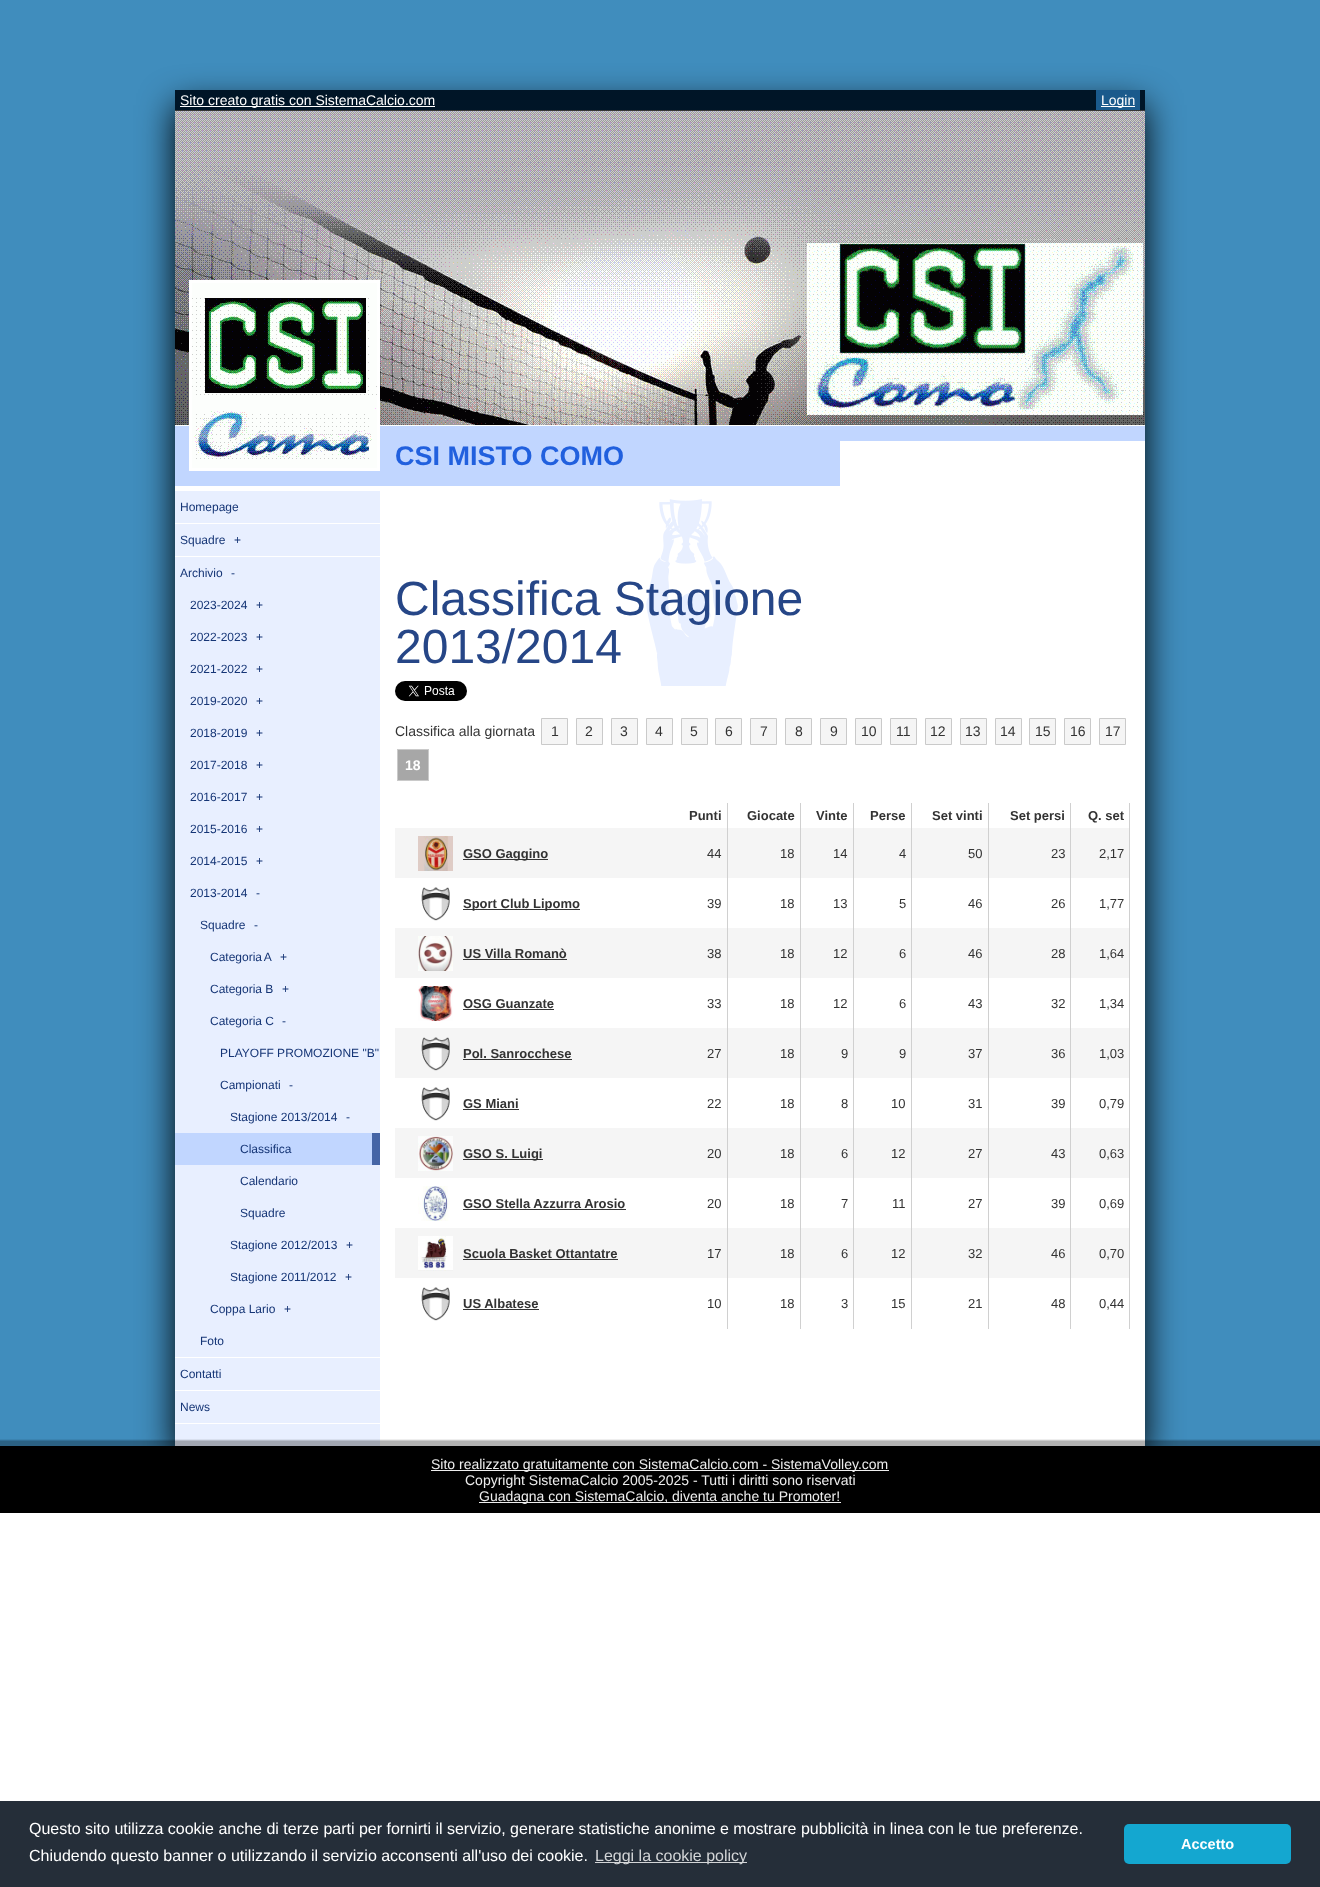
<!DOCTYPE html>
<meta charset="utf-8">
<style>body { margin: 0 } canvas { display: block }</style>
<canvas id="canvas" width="1320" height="1887"></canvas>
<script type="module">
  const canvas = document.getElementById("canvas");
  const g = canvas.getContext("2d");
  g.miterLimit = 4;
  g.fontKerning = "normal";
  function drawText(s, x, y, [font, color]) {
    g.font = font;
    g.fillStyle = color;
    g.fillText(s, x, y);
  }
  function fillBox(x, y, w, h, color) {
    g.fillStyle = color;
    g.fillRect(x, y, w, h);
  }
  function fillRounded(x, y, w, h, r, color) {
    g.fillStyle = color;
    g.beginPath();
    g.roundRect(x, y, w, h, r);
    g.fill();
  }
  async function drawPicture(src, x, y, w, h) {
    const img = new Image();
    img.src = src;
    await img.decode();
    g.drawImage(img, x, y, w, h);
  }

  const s1 = ["14px Liberation Sans", "#FFFFFF"];
  const s2 = ["bold 27px Liberation Sans", "#2160DE"];
  const s3 = ["12px Liberation Sans", "#153576"];
  const s4 = ["48px Liberation Sans", "#264687"];
  const s5 = ["14px Liberation Sans", "#333333"];
  const s6 = ["bold 14px Liberation Sans", "#FFFFFF"];
  const s7 = ["bold 13px Liberation Sans", "#333333"];
  const s8 = ["13px Liberation Sans", "#333333"];
  const s9 = ["14px Liberation Sans", "#EEEEEE"];
  const s10 = ["16px Liberation Sans", "#FFFFFF"];
  const s11 = ["16px Liberation Sans", "#D3D5D7"];
  const s12 = ["bold 14.5px Liberation Sans", "#FFFFFF"];

  fillBox(0, 0, 1320, 1887, "#FFFFFF");
  fillBox(0, 0, 1320, 1446, "#408DBD");
  g.fillStyle = "#000000";
  g.filter = "blur(17.5px)";
  g.beginPath();
  g.rect(175, 105, 970, 1356);
  g.fill();
  g.filter = "none";
  fillBox(380, 486, 765, 960, "#FFFFFF");
  fillBox(175, 90, 970, 20, "#001527");
  fillBox(175, 110, 970, 1, "#363636");
  fillBox(180, 106, 255, 1, "#FFFFFF");
  drawText("Sito creato gratis con SistemaCalcio.com", 180, 105, s1);
  fillBox(1096, 90, 44, 20, "#1A5A8C");
  fillBox(1101, 106, 34, 1, "#FFFFFF");
  drawText("Login", 1101, 105, s1);
  await drawPicture("pic1.png", 175, 111, 970, 315);
  fillBox(175, 426, 970, 60, "#C1D6FF");
  await drawPicture("pic2.png", 192, 283, 185, 185);
  g.strokeStyle = "#FFFFFF";
  g.lineWidth = 3;
  g.strokeRect(190.5, 281.5, 188, 188);
  drawText("CSI MISTO COMO", 395, 465, s2);
  fillBox(840, 441, 305, 45, "#FFFFFF");
  fillBox(175, 491, 205, 955, "#E8EFFF");
  fillBox(175, 486, 205, 5, "#FFFFFF");
  fillBox(175, 523, 205, 1, "#FFFFFF");
  drawText("Homepage", 180, 511, s3);
  fillBox(175, 556, 205, 1, "#FFFFFF");
  drawText("Squadre", 180, 544, s3);
  drawText("+", 234, 544, s3);
  fillBox(175, 1357, 205, 1, "#FFFFFF");
  drawText("Archivio", 180, 577, s3);
  drawText("-", 231, 577, s3);
  drawText("2023-2024", 190, 609, s3);
  drawText("+", 256, 609, s3);
  drawText("2022-2023", 190, 641, s3);
  drawText("+", 256, 641, s3);
  drawText("2021-2022", 190, 673, s3);
  drawText("+", 256, 673, s3);
  drawText("2019-2020", 190, 705, s3);
  drawText("+", 256, 705, s3);
  drawText("2018-2019", 190, 737, s3);
  drawText("+", 256, 737, s3);
  drawText("2017-2018", 190, 769, s3);
  drawText("+", 256, 769, s3);
  drawText("2016-2017", 190, 801, s3);
  drawText("+", 256, 801, s3);
  drawText("2015-2016", 190, 833, s3);
  drawText("+", 256, 833, s3);
  drawText("2014-2015", 190, 865, s3);
  drawText("+", 256, 865, s3);
  drawText("2013-2014", 190, 897, s3);
  drawText("-", 256, 897, s3);
  drawText("Squadre", 200, 929, s3);
  drawText("-", 254, 929, s3);
  g.wordSpacing = "-1px";
  drawText("Categoria A", 210, 961, s3);
  g.wordSpacing = "0px";
  drawText("+", 280, 961, s3);
  drawText("Categoria B", 210, 993, s3);
  drawText("+", 282, 993, s3);
  drawText("Categoria C", 210, 1025, s3);
  drawText("-", 282, 1025, s3);
  drawText("PLAYOFF PROMOZIONE \"B\"", 220, 1057, s3);
  drawText("Campionati", 220, 1089, s3);
  drawText("-", 289, 1089, s3);
  drawText("Stagione 2013/2014", 230, 1121, s3);
  drawText("-", 346, 1121, s3);
  fillBox(175, 1133, 197, 32, "#C1D6FF");
  fillBox(372, 1133, 8, 32, "#4565A6");
  drawText("Classifica", 240, 1153, s3);
  drawText("Calendario", 240, 1185, s3);
  drawText("Squadre", 240, 1217, s3);
  drawText("Stagione 2012/2013", 230, 1249, s3);
  drawText("+", 346, 1249, s3);
  drawText("Stagione 2011/2012", 230, 1281, s3);
  drawText("+", 345, 1281, s3);
  drawText("Coppa Lario", 210, 1313, s3);
  drawText("+", 284, 1313, s3);
  drawText("Foto", 200, 1345, s3);
  fillBox(175, 1390, 205, 1, "#FFFFFF");
  drawText("Contatti", 180, 1378, s3);
  fillBox(175, 1423, 205, 1, "#FFFFFF");
  drawText("News", 180, 1411, s3);
  fillBox(646, 499, 92, 187, "#E8EFFF");
  await drawPicture("pic3.png", 395, 491, 435, 210);
  drawText("Classifica Stagione", 395, 615, s4);
  drawText("2013/2014", 395, 663, s4);
  await drawPicture("pic4.png", 395, 681, 72, 20);
  drawText("Classifica alla giornata", 395, 736, s5);
  g.fillStyle = "#F5F5F5";
  g.beginPath();
  g.rect(541.5, 718.5, 26, 26);
  g.fill();
  g.strokeStyle = "#CACACA";
  g.lineWidth = 1;
  g.stroke();
  drawText("1", 551, 736, s5);
  g.fillStyle = "#F5F5F5";
  g.beginPath();
  g.rect(576.5, 718.5, 26, 26);
  g.fill();
  g.stroke();
  drawText("2", 585, 736, s5);
  g.fillStyle = "#F5F5F5";
  g.beginPath();
  g.rect(611.5, 718.5, 26, 26);
  g.fill();
  g.stroke();
  drawText("3", 620, 736, s5);
  g.fillStyle = "#F5F5F5";
  g.beginPath();
  g.rect(646.5, 718.5, 26, 26);
  g.fill();
  g.stroke();
  drawText("4", 655, 736, s5);
  g.fillStyle = "#F5F5F5";
  g.beginPath();
  g.rect(681.5, 718.5, 26, 26);
  g.fill();
  g.stroke();
  drawText("5", 690, 736, s5);
  g.fillStyle = "#F5F5F5";
  g.beginPath();
  g.rect(715.5, 718.5, 26, 26);
  g.fill();
  g.stroke();
  drawText("6", 725, 736, s5);
  g.fillStyle = "#F5F5F5";
  g.beginPath();
  g.rect(750.5, 718.5, 26, 26);
  g.fill();
  g.stroke();
  drawText("7", 760, 736, s5);
  g.fillStyle = "#F5F5F5";
  g.beginPath();
  g.rect(785.5, 718.5, 26, 26);
  g.fill();
  g.stroke();
  drawText("8", 795, 736, s5);
  g.fillStyle = "#F5F5F5";
  g.beginPath();
  g.rect(820.5, 718.5, 26, 26);
  g.fill();
  g.stroke();
  drawText("9", 830, 736, s5);
  g.fillStyle = "#F5F5F5";
  g.beginPath();
  g.rect(855.5, 718.5, 26, 26);
  g.fill();
  g.stroke();
  drawText("10", 861, 736, s5);
  g.fillStyle = "#F5F5F5";
  g.beginPath();
  g.rect(890.5, 718.5, 26, 26);
  g.fill();
  g.stroke();
  drawText("11", 896, 736, s5);
  g.fillStyle = "#F5F5F5";
  g.beginPath();
  g.rect(925.5, 718.5, 26, 26);
  g.fill();
  g.stroke();
  drawText("12", 930, 736, s5);
  g.fillStyle = "#F5F5F5";
  g.beginPath();
  g.rect(960.5, 718.5, 26, 26);
  g.fill();
  g.stroke();
  drawText("13", 965, 736, s5);
  g.fillStyle = "#F5F5F5";
  g.beginPath();
  g.rect(995.5, 718.5, 26, 26);
  g.fill();
  g.stroke();
  drawText("14", 1000, 736, s5);
  g.fillStyle = "#F5F5F5";
  g.beginPath();
  g.rect(1029.5, 718.5, 26, 26);
  g.fill();
  g.stroke();
  drawText("15", 1035, 736, s5);
  g.fillStyle = "#F5F5F5";
  g.beginPath();
  g.rect(1064.5, 718.5, 26, 26);
  g.fill();
  g.stroke();
  drawText("16", 1070, 736, s5);
  g.fillStyle = "#F5F5F5";
  g.beginPath();
  g.rect(1099.5, 718.5, 26, 26);
  g.fill();
  g.stroke();
  drawText("17", 1105, 736, s5);
  g.strokeRect(397.5, 749.5, 31, 31);
  fillBox(398, 750, 30, 30, "#A7A7A7");
  drawText("18", 405, 770, s6);
  drawText("Punti", 689, 820, s7);
  drawText("Giocate", 747, 820, s7);
  drawText("Vinte", 816, 820, s7);
  drawText("Perse", 870, 820, s7);
  drawText("Set vinti", 932, 820, s7);
  drawText("Set persi", 1010, 820, s7);
  drawText("Q. set", 1088, 820, s7);
  fillBox(395, 828, 734, 50, "#F5F5F5");
  await drawPicture("pic5.png", 418, 836, 35, 35);
  fillBox(463, 859, 85, 1, "#333333");
  drawText("GSO Gaggino", 463, 858, s7);
  drawText("44", 707, 858, s8);
  drawText("18", 780, 858, s8);
  drawText("14", 833, 858, s8);
  drawText("4", 899, 858, s8);
  drawText("50", 968, 858, s8);
  drawText("23", 1051, 858, s8);
  drawText("2,17", 1099, 858, s8);
  await drawPicture("pic6.png", 421, 887, 29, 34);
  fillBox(463, 909, 117, 1, "#333333");
  drawText("Sport Club Lipomo", 463, 908, s7);
  drawText("39", 707, 908, s8);
  drawText("18", 780, 908, s8);
  drawText("13", 833, 908, s8);
  drawText("5", 899, 908, s8);
  drawText("46", 968, 908, s8);
  drawText("26", 1051, 908, s8);
  drawText("1,77", 1099, 908, s8);
  fillBox(395, 928, 734, 50, "#F5F5F5");
  await drawPicture("pic7.png", 418, 936, 35, 35);
  drawText("US Villa Romanò", 463, 958, s7);
  fillBox(463, 959, 104, 1, "#333333");
  drawText("38", 707, 958, s8);
  drawText("18", 780, 958, s8);
  drawText("12", 833, 958, s8);
  drawText("6", 899, 958, s8);
  drawText("46", 968, 958, s8);
  drawText("28", 1051, 958, s8);
  drawText("1,64", 1099, 958, s8);
  await drawPicture("pic8.png", 418, 986, 35, 35);
  drawText("OSG Guanzate", 463, 1008, s7);
  fillBox(463, 1009, 91, 1, "#333333");
  drawText("33", 707, 1008, s8);
  drawText("18", 780, 1008, s8);
  drawText("12", 833, 1008, s8);
  drawText("6", 899, 1008, s8);
  drawText("43", 968, 1008, s8);
  drawText("32", 1051, 1008, s8);
  drawText("1,34", 1099, 1008, s8);
  fillBox(395, 1028, 734, 50, "#F5F5F5");
  await drawPicture("pic9.png", 421, 1037, 29, 34);
  drawText("Pol. Sanrocchese", 463, 1058, s7);
  fillBox(463, 1059, 109, 1, "#333333");
  drawText("27", 707, 1058, s8);
  drawText("18", 780, 1058, s8);
  drawText("9", 841, 1058, s8);
  drawText("9", 899, 1058, s8);
  drawText("37", 968, 1058, s8);
  drawText("36", 1051, 1058, s8);
  drawText("1,03", 1099, 1058, s8);
  await drawPicture("pic6.png", 421, 1087, 29, 34);
  drawText("GS Miani", 463, 1108, s7);
  fillBox(463, 1109, 56, 1, "#333333");
  drawText("22", 707, 1108, s8);
  drawText("18", 780, 1108, s8);
  drawText("8", 841, 1108, s8);
  drawText("10", 891, 1108, s8);
  drawText("31", 968, 1108, s8);
  drawText("39", 1051, 1108, s8);
  drawText("0,79", 1099, 1108, s8);
  fillBox(395, 1128, 734, 50, "#F5F5F5");
  await drawPicture("pic10.png", 418, 1136, 35, 35);
  fillBox(463, 1159, 80, 1, "#333333");
  drawText("GSO S. Luigi", 463, 1158, s7);
  drawText("20", 707, 1158, s8);
  drawText("18", 780, 1158, s8);
  drawText("6", 841, 1158, s8);
  drawText("12", 891, 1158, s8);
  drawText("27", 968, 1158, s8);
  drawText("43", 1051, 1158, s8);
  drawText("0,63", 1099, 1158, s8);
  await drawPicture("pic11.png", 418, 1186, 32, 35);
  drawText("GSO Stella Azzurra Arosio", 463, 1208, s7);
  fillBox(463, 1209, 163, 1, "#333333");
  drawText("20", 707, 1208, s8);
  drawText("18", 780, 1208, s8);
  drawText("7", 841, 1208, s8);
  drawText("11", 892, 1208, s8);
  drawText("27", 968, 1208, s8);
  drawText("39", 1051, 1208, s8);
  drawText("0,69", 1099, 1208, s8);
  fillBox(395, 1228, 734, 50, "#F5F5F5");
  await drawPicture("pic12.png", 418, 1236, 35, 35);
  drawText("Scuola Basket Ottantatre", 463, 1258, s7);
  fillBox(463, 1259, 155, 1, "#333333");
  drawText("17", 707, 1258, s8);
  drawText("18", 780, 1258, s8);
  drawText("6", 841, 1258, s8);
  drawText("12", 891, 1258, s8);
  drawText("32", 968, 1258, s8);
  drawText("46", 1051, 1258, s8);
  drawText("0,70", 1099, 1258, s8);
  await drawPicture("pic6.png", 421, 1287, 29, 34);
  drawText("US Albatese", 463, 1308, s7);
  fillBox(463, 1309, 76, 1, "#333333");
  fillBox(727, 803, 1, 526, "#D0D0D0");
  drawText("10", 707, 1308, s8);
  fillBox(800, 803, 1, 526, "#D0D0D0");
  drawText("18", 780, 1308, s8);
  fillBox(853, 803, 1, 526, "#D0D0D0");
  drawText("3", 841, 1308, s8);
  fillBox(911, 803, 1, 526, "#D0D0D0");
  drawText("15", 891, 1308, s8);
  fillBox(988, 803, 1, 526, "#D0D0D0");
  drawText("21", 968, 1308, s8);
  fillBox(1070, 803, 1, 526, "#D0D0D0");
  drawText("48", 1051, 1308, s8);
  fillBox(1129, 803, 1, 526, "#D0D0D0");
  drawText("0,44", 1099, 1308, s8);
  await drawPicture("pic13.png", 0, 1439, 1320, 7);
  fillBox(0, 1446, 1320, 67, "#000000");
  fillBox(431, 1470, 458, 1, "#EEEEEE");
  drawText("Sito realizzato gratuitamente con SistemaCalcio.com - SistemaVolley.com", 431, 1469, s9);
  drawText("Copyright SistemaCalcio 2005-2025 - Tutti i diritti sono riservati", 465, 1485, s9);
  fillBox(479, 1502, 362, 1, "#EEEEEE");
  drawText("Guadagna con SistemaCalcio, diventa anche tu Promoter!", 479, 1501, s9);
  fillBox(0, 1801, 1320, 86, "#252E39");
  drawText("Questo sito utilizza cookie anche di terze parti per fornirti il servizio, generare statistiche anonime e mostrare pubblicità in linea con le tue preferenze.", 29, 1834, s10);
  drawText("Chiudendo questo banner o utilizzando il servizio acconsenti all'uso dei cookie.", 29, 1861, s10);
  fillBox(595, 1862, 152, 1, "#D3D5D7");
  drawText("Leggi la cookie policy", 595, 1861, s11);
  fillRounded(1124, 1824, 167, 40, 5, "#14A7D0");
  drawText("Accetto", 1181, 1849, s12);
</script>
